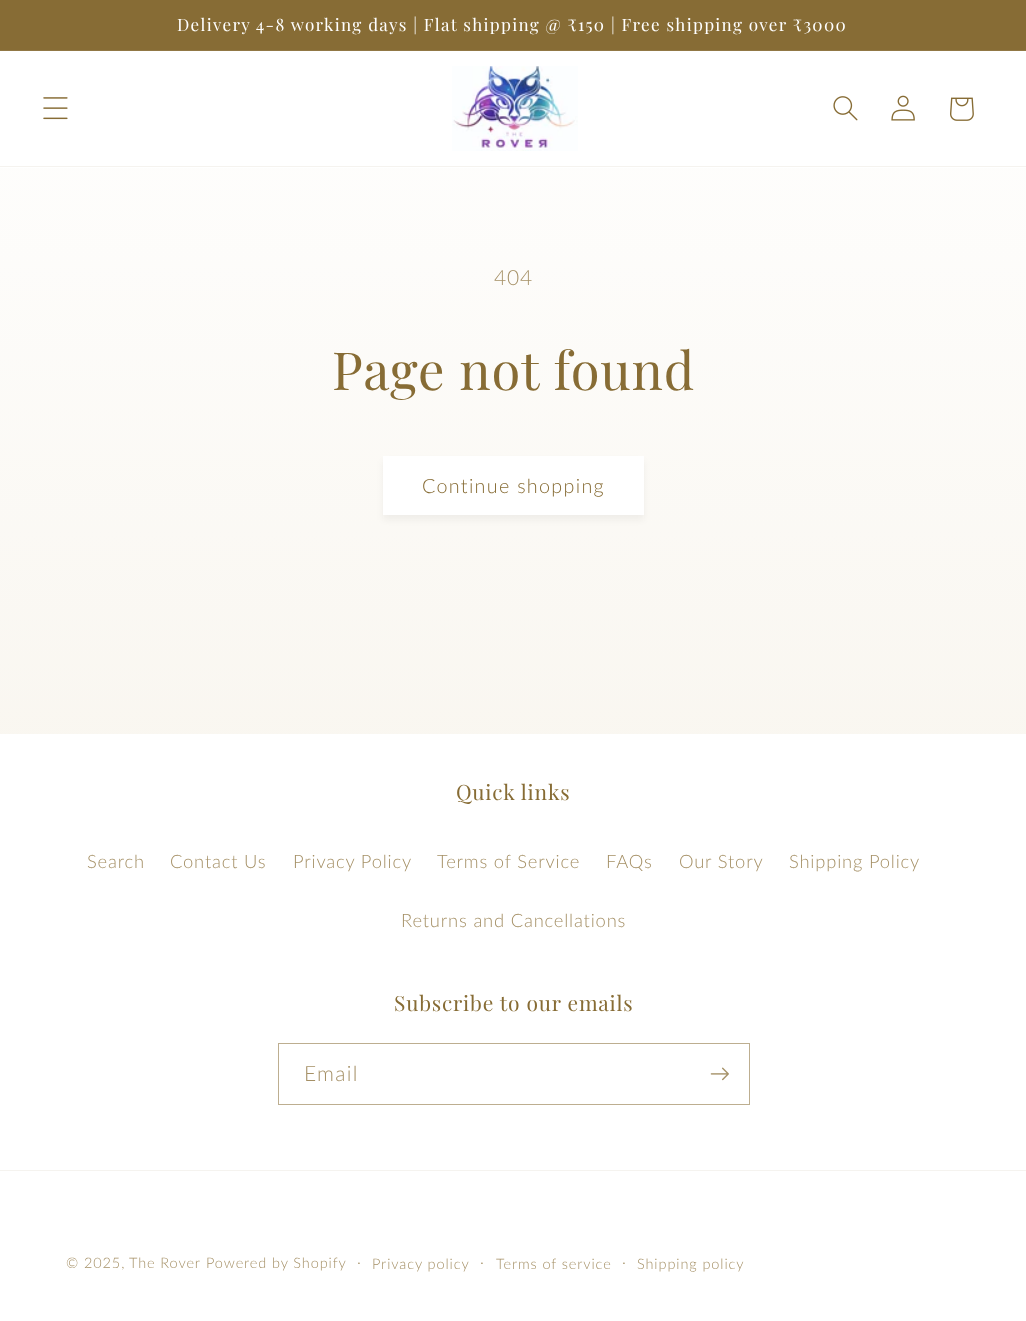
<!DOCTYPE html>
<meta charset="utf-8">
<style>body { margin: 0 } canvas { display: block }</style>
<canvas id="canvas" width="1026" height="1321"></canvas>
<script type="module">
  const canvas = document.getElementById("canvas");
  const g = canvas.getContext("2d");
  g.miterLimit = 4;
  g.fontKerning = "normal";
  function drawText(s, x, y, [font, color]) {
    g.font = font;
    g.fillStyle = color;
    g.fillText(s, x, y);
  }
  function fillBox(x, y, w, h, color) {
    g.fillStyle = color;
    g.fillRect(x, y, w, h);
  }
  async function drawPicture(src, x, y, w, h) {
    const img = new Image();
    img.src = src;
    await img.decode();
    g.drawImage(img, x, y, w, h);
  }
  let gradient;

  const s1 = ["17.05px Playfair Display", "#FFFFFF"];
  const s2 = ["300 21px Lato", "#A59066"];
  const s3 = ["52.5px Playfair Display", "#876C35"];
  const s4 = ["300 19.75px Lato", "#876C35"];
  const s5 = ["21px Playfair Display", "#876C35"];
  const s6 = ["300 18.4px Lato", "#A59066"];
  const s7 = ["300 14.5px Lato", "#A59066"];
  const s8 = ["300 16px Lato", "#A59066"];

  fillBox(0, 0, 1026, 1321, "#FFFFFF");
  gradient = g.createLinearGradient(513, 0, 513, 1321);
  gradient.addColorStop(0, "#FFFFFF");
  gradient.addColorStop(1, "#F5F0E5");
  g.fillStyle = gradient;
  g.fillRect(0, 168, 1026, 566);
  fillBox(0, 0, 1026, 50, "#876C35");
  fillBox(0, 50, 1026, 1, "#917845");
  g.letterSpacing = "1.3px";
  drawText("Delivery 4-8 working days | Flat shipping @ ₹150 | Free shipping over ₹3000", 177, 31, s1);
  fillBox(0, 166, 1026, 1, "#F5F3EF");
  await drawPicture("pic1.png", 43, 97, 25, 23);
  await drawPicture("pic2.png", 452, 66, 126, 85);
  await drawPicture("pic3.png", 833, 96, 25, 25);
  await drawPicture("pic4.png", 891, 95, 24, 26);
  await drawPicture("pic5.png", 950, 97, 24, 24);
  g.letterSpacing = "0.8px";
  drawText("404", 494, 285, s2);
  drawText("Page not found", 332, 390, s3);
  g.fillStyle = "rgba(18, 18, 18, 0.05)";
  g.filter = "blur(3px)";
  g.beginPath();
  g.rect(383, 461, 261, 59);
  g.fill();
  g.filter = "none";
  fillBox(383, 456, 261, 59, "#FFFFFF");
  g.letterSpacing = "1.3px";
  drawText("Continue shopping", 422, 493, s4);
  g.letterSpacing = "0.8px";
  drawText("Quick links", 456, 800, s5);
  drawText("Search", 87, 868, s6);
  drawText("Contact Us", 170, 868, s6);
  drawText("Privacy Policy", 293, 868, s6);
  drawText("Terms of Service", 437, 868, s6);
  drawText("FAQs", 606, 868, s6);
  drawText("Our Story", 679, 868, s6);
  drawText("Shipping Policy", 789, 868, s6);
  drawText("Returns and Cancellations", 401, 927, s6);
  drawText("Subscribe to our emails", 394, 1011, s5);
  g.strokeStyle = "#BDAE90";
  g.strokeRect(278.5, 1043.5, 471, 61);
  g.letterSpacing = "1.3px";
  drawText("Email", 304, 1081, s2);
  await drawPicture("pic6.png", 710, 1067, 19, 14);
  fillBox(0, 1170, 1026, 1, "#F5F3EF");
  g.letterSpacing = "0.9px";
  drawText("© 2025,", 66, 1268, s7);
  drawText("The Rover", 129, 1268, s7);
  drawText("Powered by Shopify", 206, 1268, s7);
  drawText("·", 357, 1268, s8);
  drawText("Privacy policy", 372, 1269, s7);
  drawText("·", 480, 1268, s8);
  drawText("Terms of service", 496, 1269, s7);
  drawText("·", 622, 1268, s8);
  drawText("Shipping policy", 637, 1269, s7);
</script>
